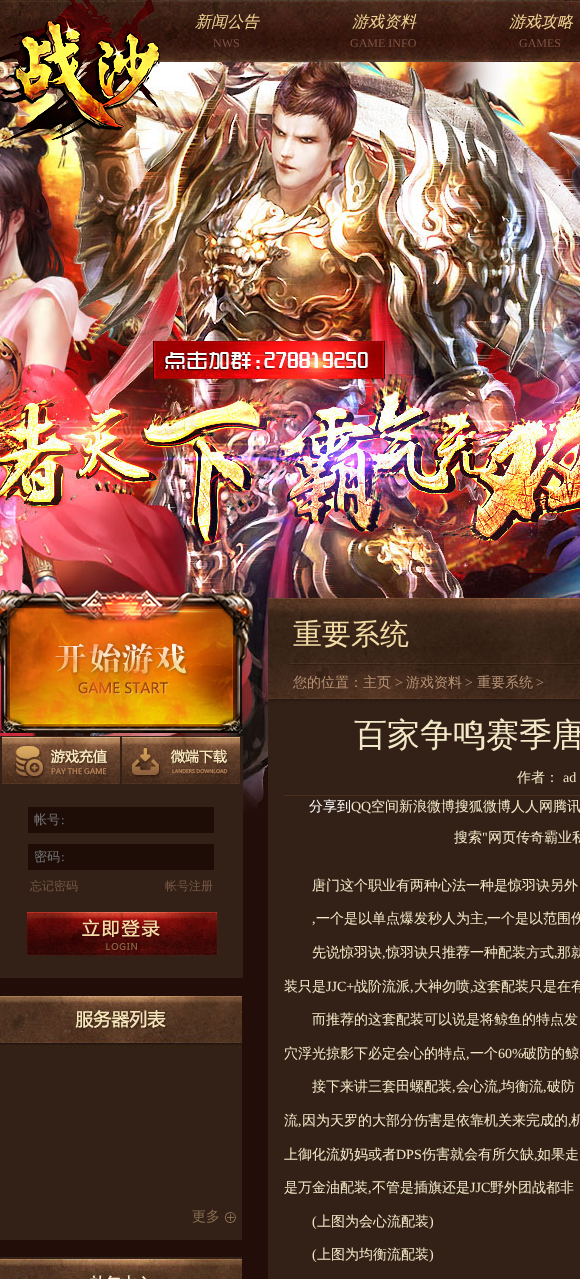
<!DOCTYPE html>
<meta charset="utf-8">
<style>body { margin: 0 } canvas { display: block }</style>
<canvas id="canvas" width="580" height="1279"></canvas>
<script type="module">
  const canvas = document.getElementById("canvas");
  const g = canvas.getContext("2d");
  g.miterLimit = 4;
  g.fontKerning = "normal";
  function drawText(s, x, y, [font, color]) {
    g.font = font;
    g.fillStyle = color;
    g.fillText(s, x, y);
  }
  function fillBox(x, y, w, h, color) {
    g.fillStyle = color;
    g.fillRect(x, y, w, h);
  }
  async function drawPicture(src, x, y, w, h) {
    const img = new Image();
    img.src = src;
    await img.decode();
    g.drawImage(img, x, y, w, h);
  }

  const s1 = ["italic 500 16px WenQuanYi Zen Hei", "#F2D492"];
  const s2 = ["12px Liberation Serif", "#7E5440"];
  const s3 = ["500 13px WenQuanYi Zen Hei", "#757575"];
  const s4 = ["13px Liberation Serif", "#757575"];
  const s5 = ["500 12px WenQuanYi Zen Hei", "#775744"];
  const s6 = ["500 14px WenQuanYi Zen Hei", "#886C51"];
  const s7 = ["500 29px WenQuanYi Zen Hei", "#F3DCA6"];
  const s8 = ["500 14px WenQuanYi Zen Hei", "#B59174"];
  const s9 = ["14px Liberation Serif", "#B59174"];
  const s10 = ["500 33px WenQuanYi Zen Hei", "#F1E9C7"];
  const s11 = ["500 14px WenQuanYi Zen Hei", "#F1E9C7"];
  const s12 = ["14px Liberation Serif", "#F1E9C7"];
  const s13 = ["500 14px WenQuanYi Zen Hei", "#FFFFFF"];

  fillBox(0, 0, 580, 1279, "#220D08");
  await drawPicture("pic1.png", 0, 62, 580, 751);
  await drawPicture("pic3.png", 0, 0, 580, 62);
  await drawPicture("pic2.png", 0, 0, 160, 145);
  drawText("新闻公告", 195, 27, s1);
  drawText("NWS", 213, 47, s2);
  drawText("游戏资料", 352, 27, s1);
  drawText("GAME INFO", 350, 47, s2);
  drawText("游戏攻略", 509, 27, s1);
  drawText("GAMES", 519, 47, s2);
  await drawPicture("pic4.png", 0, 590, 253, 143);
  await drawPicture("pic5.png", 55, 642, 134, 53);
  await drawPicture("pic6.png", 7, 608, 226, 116);
  fillBox(0, 736, 243, 242, "#332117");
  await drawPicture("pic7.png", 2, 737, 118, 47);
  await drawPicture("pic8.png", 122, 737, 118, 47);
  fillBox(28, 807, 186, 26, "#1E0C07");
  drawText("帐号", 34, 824, s3);
  drawText(":", 61, 824, s4);
  fillBox(28, 844, 186, 26, "#1E0C07");
  drawText("密码", 34, 861, s3);
  drawText(":", 61, 861, s4);
  drawText("忘记密码", 30, 890, s5);
  drawText("帐号注册", 165, 890, s5);
  await drawPicture("pic9.png", 27, 912, 192, 45);
  fillBox(0, 1048, 242, 192, "#332117");
  await drawPicture("pic10.png", 0, 996, 243, 52);
  await drawPicture("pic11.png", 192, 1209, 44, 16);
  drawText("更多", 192, 1221, s6);
  await drawPicture("pic12.png", 0, 1257, 243, 22);
  await drawPicture("pic13.png", 268, 598, 312, 108);
  drawText("重要系统", 293, 644, s7);
  drawText("您的位置：主页", 293, 687, s8);
  drawText(">", 395, 687, s9);
  drawText("游戏资料", 406, 687, s8);
  drawText(">", 465, 687, s9);
  drawText("重要系统", 477, 687, s8);
  drawText(">", 536, 687, s9);
  fillBox(268, 706, 312, 573, "#332117");
  drawText("百家争鸣赛季唐", 354, 746, s10);
  fillBox(284, 795, 296, 1, "#4A2F1E");
  drawText("作者：", 517, 782, s11);
  drawText("ad", 563, 782, s12);
  drawText("分享到", 309, 811, s13);
  drawText("QQ", 351, 811, s12);
  drawText("空间新浪微博搜狐微博人人网腾讯", 371, 811, s11);
  drawText("搜索", 454, 842, s11);
  drawText("\"", 482, 842, s12);
  drawText("网页传奇霸业私", 488, 842, s11);
  drawText("唐门这个职业有两种心法一种是惊羽诀另外", 312, 890, s11);
  drawText(",", 312, 923, s12);
  drawText("一个是以单点爆发秒人为主", 316, 923, s11);
  drawText(",", 484, 923, s12);
  drawText("一个是以范围伤", 487, 923, s11);
  drawText("先说惊羽诀", 312, 957, s11);
  drawText(",", 382, 957, s12);
  drawText("惊羽诀只推荐一种配装方式", 386, 957, s11);
  drawText(",", 554, 957, s12);
  drawText("那就", 557, 957, s11);
  drawText("装只是", 284, 991, s11);
  drawText("JJC+", 326, 991, s12);
  drawText("战阶流派", 354, 991, s11);
  drawText(",", 410, 991, s12);
  drawText("大神勿喷", 414, 991, s11);
  drawText(",", 470, 991, s12);
  drawText("这套配装只是在有", 473, 991, s11);
  drawText("而推荐的这套配装可以说是将鲸鱼的特点发", 312, 1024, s11);
  drawText("穴浮光掠影下必定会心的特点", 284, 1058, s11);
  drawText(",", 466, 1058, s12);
  drawText("一个", 470, 1058, s11);
  drawText("60%", 498, 1058, s12);
  drawText("破防的鲸", 523, 1058, s11);
  drawText("接下来讲三套田螺配装", 312, 1091, s11);
  drawText(",", 452, 1091, s12);
  drawText("会心流", 456, 1091, s11);
  drawText(",", 498, 1091, s12);
  drawText("均衡流", 501, 1091, s11);
  drawText(",", 543, 1091, s12);
  drawText("破防", 547, 1091, s11);
  drawText("流", 284, 1125, s11);
  drawText(",", 298, 1125, s12);
  drawText("因为天罗的大部分伤害是依靠机关来完成的", 302, 1125, s11);
  drawText(",", 568, 1125, s12);
  drawText("机", 571, 1125, s11);
  drawText("上御化流奶妈或者", 284, 1159, s11);
  drawText("DPS", 396, 1159, s12);
  drawText("伤害就会有所欠缺", 422, 1159, s11);
  drawText(",", 534, 1159, s12);
  drawText("如果走", 537, 1159, s11);
  drawText("是万金油配装", 284, 1192, s11);
  drawText(",", 368, 1192, s12);
  drawText("不管是插旗还是", 372, 1192, s11);
  drawText("JJC", 470, 1192, s12);
  drawText("野外团战都非", 490, 1192, s11);
  drawText("(", 312, 1226, s12);
  drawText("上图为会心流配装", 317, 1226, s11);
  drawText(")", 429, 1226, s12);
  drawText("(", 312, 1259, s12);
  drawText("上图为均衡流配装", 317, 1259, s11);
  drawText(")", 429, 1259, s12);
</script>
